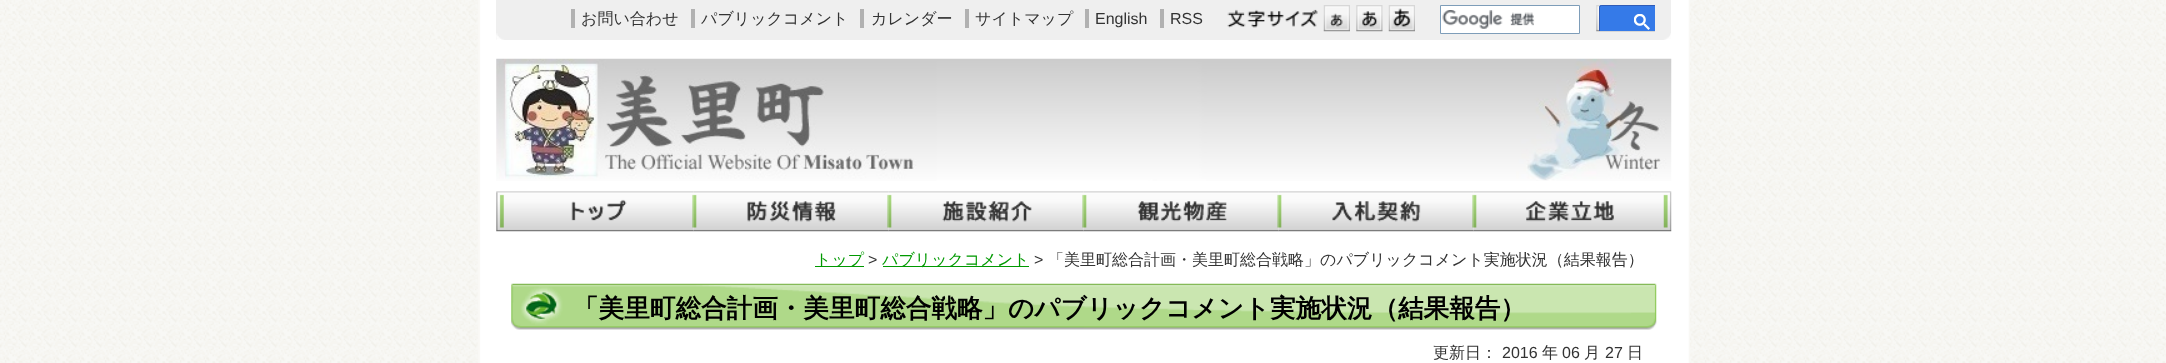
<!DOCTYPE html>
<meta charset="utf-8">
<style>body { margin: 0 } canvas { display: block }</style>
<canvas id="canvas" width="2166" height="363"></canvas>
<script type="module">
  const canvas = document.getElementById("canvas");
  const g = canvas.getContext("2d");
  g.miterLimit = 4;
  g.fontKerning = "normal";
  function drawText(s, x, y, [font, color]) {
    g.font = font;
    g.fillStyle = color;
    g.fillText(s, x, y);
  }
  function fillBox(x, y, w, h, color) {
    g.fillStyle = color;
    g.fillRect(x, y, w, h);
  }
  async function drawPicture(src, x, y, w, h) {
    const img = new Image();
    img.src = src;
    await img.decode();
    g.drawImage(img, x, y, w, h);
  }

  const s1 = ["500 16px WenQuanYi Zen Hei", "#333333"];
  const s2 = ["16px Liberation Sans", "#333333"];
  const s3 = ["500 16px WenQuanYi Zen Hei", "#009900"];
  const s4 = ["bold 25.6px WenQuanYi Zen Hei", "#000000"];

  fillBox(0, 0, 2166, 363, "#FFFFFF");
  await drawPicture("pic1.png", 0, 0, 2166, 363);
  await drawPicture("pic2.png", 478, 0, 1212, 363);
  fillBox(496, 0, 1175, 40, "#EFEFEF");
  await drawPicture("pic3.png", 496, 33, 1175, 7);
  fillBox(571, 9, 4, 19, "#B1B1B1");
  drawText("お問い合わせ", 581, 24, s1);
  fillBox(691, 9, 4, 19, "#B1B1B1");
  drawText("パブリックコメント", 701, 24, s1);
  fillBox(860, 9, 4, 19, "#B1B1B1");
  drawText("カレンダー", 871, 24, s1);
  fillBox(965, 9, 4, 19, "#B1B1B1");
  drawText("サイトマップ", 975, 24, s1);
  fillBox(1085, 9, 4, 19, "#B1B1B1");
  drawText("English", 1095, 24, s2);
  fillBox(1160, 9, 4, 19, "#B1B1B1");
  drawText("RSS", 1170, 24, s2);
  await drawPicture("pic4.png", 1227, 9, 91, 19);
  await drawPicture("pic5.png", 1323, 5, 27, 27);
  await drawPicture("pic6.png", 1356, 5, 27, 27);
  await drawPicture("pic7.png", 1388, 5, 27, 27);
  g.fillStyle = "#FFFFFF";
  g.beginPath();
  g.rect(1440.5, 5.5, 139, 28);
  g.fill();
  g.strokeStyle = "#7E9DB9";
  g.stroke();
  await drawPicture("pic8.png", 1442, 10, 93, 19);
  await drawPicture("pic9.png", 1596, 5, 59, 27);
  g.fillStyle = "#357AE8";
  g.beginPath();
  g.roundRect(1599, 5, 56, 26, [2.5, 0, 0, 0]);
  g.fill();
  g.save();
  g.beginPath();
  g.rect(1596, 5, 59, 26);
  g.clip();
  g.beginPath();
  g.roundRect(1599.5, 5.5, 85, 33, 2);
  g.strokeStyle = "#2F5BB7";
  g.stroke();
  g.restore();
  await drawPicture("pic10.png", 1634, 14, 16, 16);
  await drawPicture("pic11.png", 496, 58, 1176, 123);
  await drawPicture("pic12.png", 496, 191, 198, 41);
  await drawPicture("pic13.png", 693, 191, 196, 41);
  await drawPicture("pic14.png", 888, 191, 196, 41);
  await drawPicture("pic15.png", 1083, 191, 196, 41);
  await drawPicture("pic16.png", 1278, 191, 196, 41);
  await drawPicture("pic17.png", 1473, 191, 199, 41);
  fillBox(815, 266, 49, 1, "#009900");
  drawText("トップ", 815, 265, s3);
  drawText(">", 868, 265, s2);
  fillBox(883, 266, 146, 1, "#009900");
  drawText("パブリックコメント", 882, 265, s3);
  drawText(">", 1034, 265, s2);
  drawText("「美里町総合計画・美里町総合戦略」のパブリックコメント実施状況（結果報告）", 1048, 265, s1);
  await drawPicture("pic18.png", 511, 283, 1146, 47);
  drawText("「美里町総合計画・美里町総合戦略」のパブリックコメント実施状況（結果報告）", 573, 317, s4);
  drawText("更新日：", 1433, 358, s1);
  drawText("2016", 1502, 358, s2);
  drawText("年", 1542, 358, s1);
  drawText("06", 1562, 358, s2);
  drawText("月", 1584, 358, s1);
  drawText("27", 1605, 358, s2);
  drawText("日", 1627, 358, s1);
</script>
